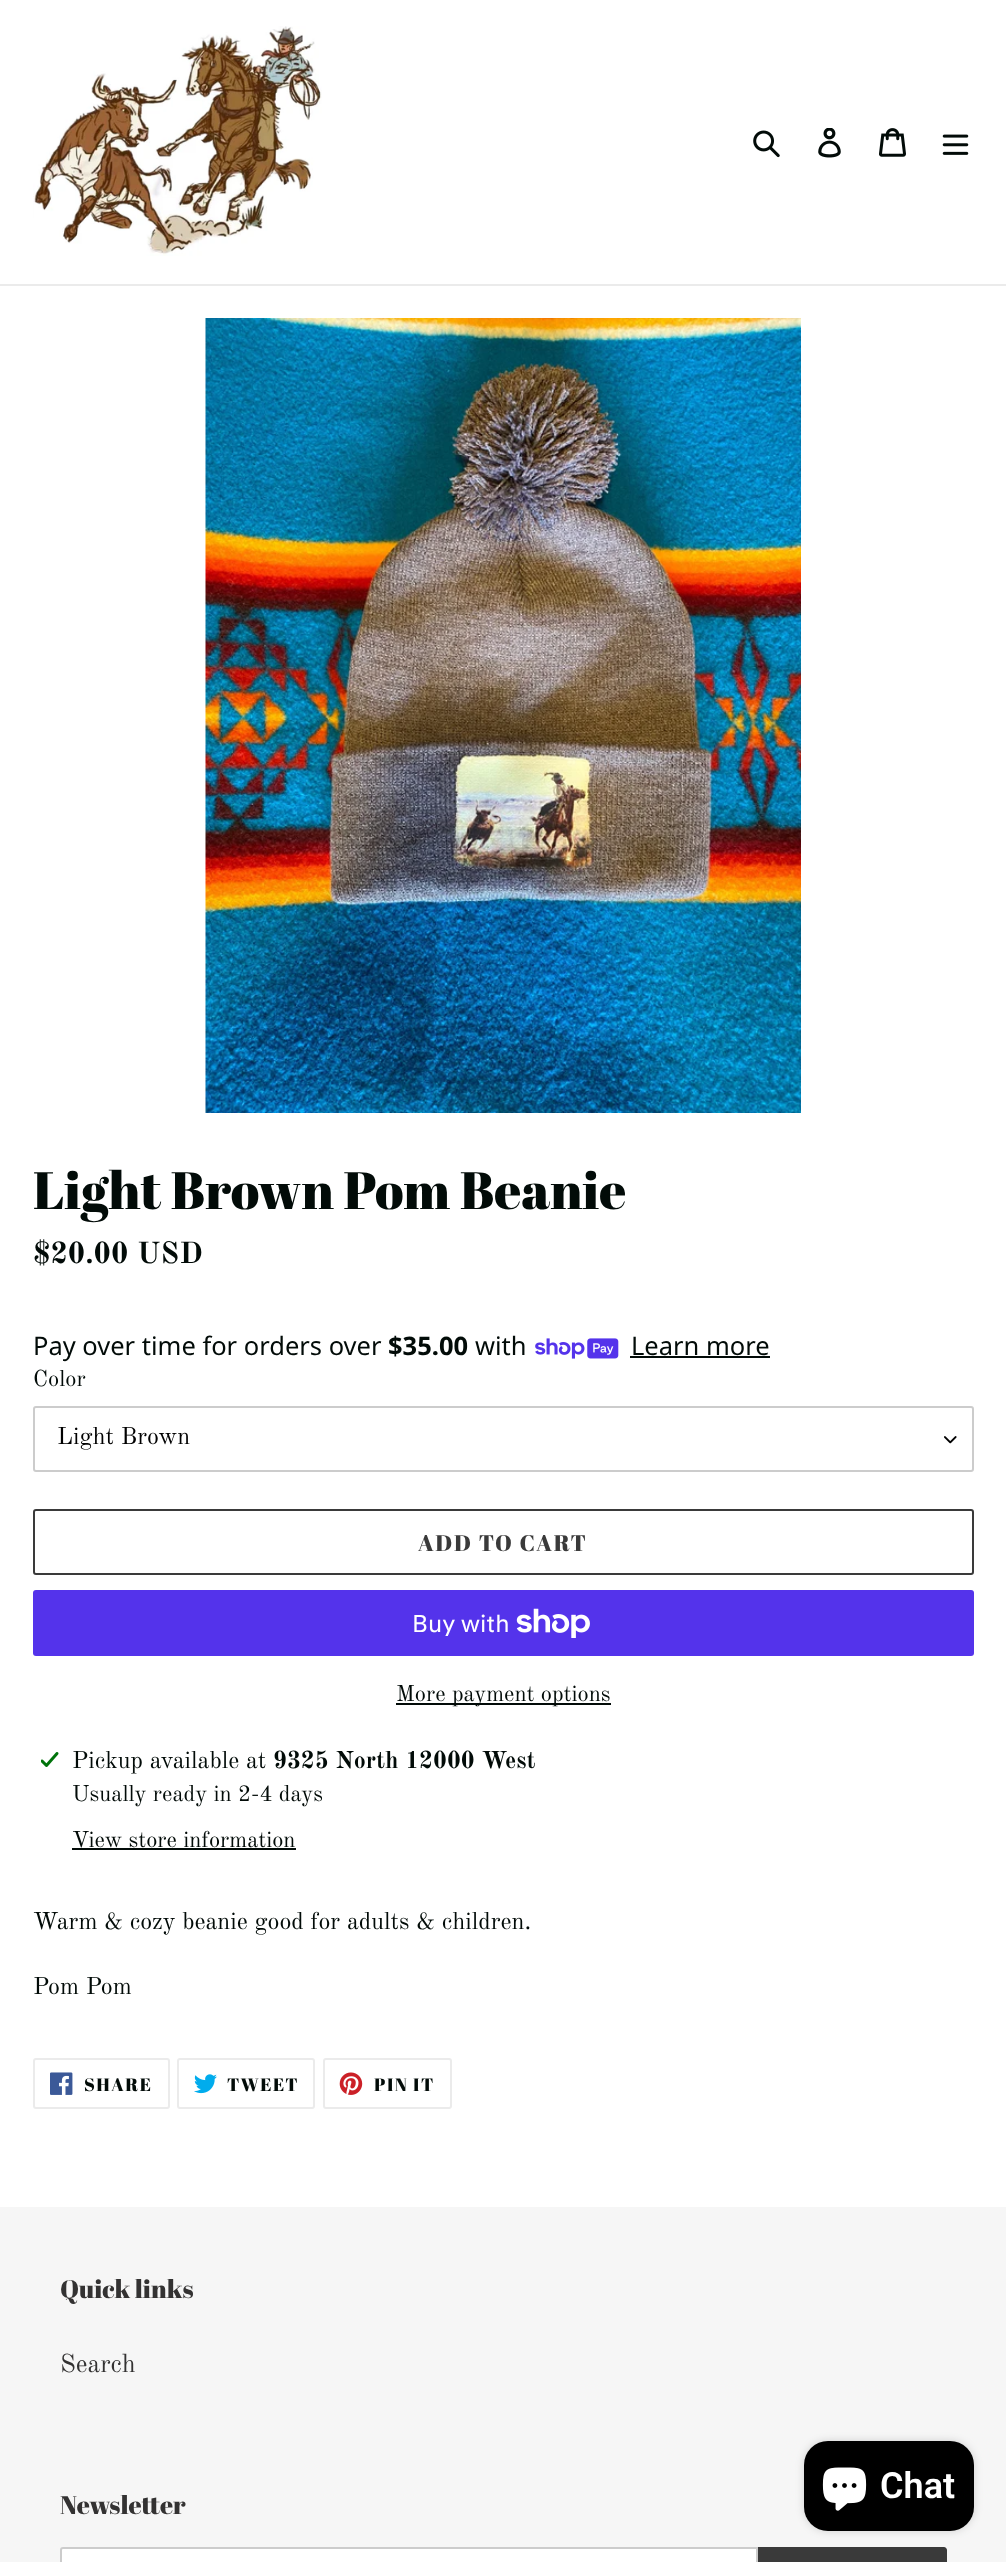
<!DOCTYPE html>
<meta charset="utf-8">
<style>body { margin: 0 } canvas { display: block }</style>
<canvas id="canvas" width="1006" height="2562"></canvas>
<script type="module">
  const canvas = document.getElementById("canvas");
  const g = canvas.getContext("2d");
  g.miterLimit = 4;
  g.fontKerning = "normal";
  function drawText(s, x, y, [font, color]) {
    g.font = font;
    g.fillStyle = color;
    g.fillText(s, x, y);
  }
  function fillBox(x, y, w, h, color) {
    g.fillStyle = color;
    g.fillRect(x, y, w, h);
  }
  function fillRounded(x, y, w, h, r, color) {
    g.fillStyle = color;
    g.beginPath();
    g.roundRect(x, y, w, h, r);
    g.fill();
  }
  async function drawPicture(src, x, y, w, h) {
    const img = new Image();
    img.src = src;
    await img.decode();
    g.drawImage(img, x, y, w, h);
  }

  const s1 = ["52.5px Abril Fatface", "#020B08"];
  const s2 = ["bold 30px Old Standard TT", "#020B08"];
  const s3 = ["25.5px Noto Sans", "#020B08"];
  const s4 = ["bold 25.5px Noto Sans", "#020B08"];
  const s5 = ["22.5px Old Standard TT", "#020B08"];
  const s6 = ["24px Old Standard TT", "#000000"];
  const s7 = ["22.5px Abril Fatface", "#3A3A3A"];
  const s8 = ["24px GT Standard", "#FFFFFF"];
  const s9 = ["24px Old Standard TT", "#020B08"];
  const s10 = ["bold 24px Old Standard TT", "#020B08"];
  const s11 = ["18px Abril Fatface", "#020B08"];
  const s12 = ["25.5px Abril Fatface", "#333232"];
  const s13 = ["25.5px Old Standard TT", "#333232"];
  const s14 = ["600 36px Roboto", "#FFFFFF"];

  fillBox(0, 0, 1006, 2562, "#FFFFFF");
  fillBox(0, 284, 1006, 2, "#EBEBEB");
  await drawPicture("pic1.png", 33, 26, 289, 230);
  await drawPicture("pic2.png", 753, 130, 27, 28);
  await drawPicture("pic3.png", 818, 128, 23, 30);
  await drawPicture("pic4.png", 879, 128, 27, 29);
  await drawPicture("pic5.png", 942, 134, 27, 21);
  await drawPicture("pic6.png", 205, 318, 596, 795);
  drawText("Light Brown Pom Beanie", 33, 1209, s1);
  drawText("$20.00 USD", 33, 1263, s2);
  drawText("Pay over time for orders over", 33, 1355, s3);
  drawText("$35.00", 388, 1355, s4);
  drawText("with", 475, 1355, s3);
  await drawPicture("pic7.png", 535, 1338, 84, 21);
  drawText("Learn more", 631, 1355, s3);
  fillBox(630, 1356, 140, 2, "#020B08");
  drawText("Color", 33, 1386, s5);
  await drawPicture("pic8.png", 944, 1436, 13, 8);
  g.beginPath();
  g.roundRect(34, 1407, 939, 64, 2);
  g.strokeStyle = "#CCCCCC";
  g.lineWidth = 2;
  g.stroke();
  drawText("Light Brown", 57, 1444, s6);
  g.beginPath();
  g.roundRect(34, 1510, 939, 64, 2);
  g.strokeStyle = "#3A3A3A";
  g.stroke();
  g.letterSpacing = "1.75px";
  drawText("ADD TO CART", 418, 1551, s7);
  fillRounded(33, 1590, 941, 66, 3, "#5433EB");
  g.letterSpacing = "0px";
  drawText("Buy with", 412, 1632, s8);
  await drawPicture("pic9.png", 516, 1608, 74, 30);
  fillBox(396, 1703, 215, 2, "#020B08");
  drawText("More payment options", 396, 1701, s5);
  await drawPicture("pic10.png", 41, 1752, 18, 15);
  drawText("Pickup available at", 72, 1768, s9);
  drawText("9325 North 12000 West", 273, 1768, s10);
  drawText("Usually ready in 2-4 days", 72, 1801, s5);
  drawText("View store information", 72, 1847, s5);
  fillBox(72, 1848, 224, 2, "#020B08");
  drawText("Warm & cozy beanie good for adults & children.", 33, 1929, s9);
  drawText("Pom Pom", 33, 1994, s9);
  g.beginPath();
  g.roundRect(34, 2059, 135, 49, 2);
  g.strokeStyle = "#EBEBEB";
  g.stroke();
  await drawPicture("pic11.png", 50, 2072, 23, 23);
  g.letterSpacing = "1.5px";
  drawText("SHARE", 84, 2091, s11);
  g.beginPath();
  g.roundRect(178, 2059, 136, 49, 2);
  g.stroke();
  await drawPicture("pic12.png", 194, 2074, 23, 20);
  drawText("TWEET", 227, 2091, s11);
  g.beginPath();
  g.roundRect(324, 2059, 127, 49, 2);
  g.stroke();
  await drawPicture("pic13.png", 339, 2072, 24, 23);
  drawText("PIN IT", 374, 2091, s11);
  fillBox(0, 2207, 1006, 355, "#F6F6F6");
  g.letterSpacing = "0px";
  drawText("Quick links", 60, 2298, s12);
  drawText("Search", 60, 2372, s13);
  drawText("Newsletter", 60, 2514, s12);
  g.fillStyle = "#FFFFFF";
  g.beginPath();
  g.moveTo(63, 2548);
  g.lineTo(757, 2548);
  g.lineTo(757, 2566);
  g.lineTo(63, 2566);
  g.bezierCurveTo(62, 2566, 61, 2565, 61, 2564);
  g.lineTo(61, 2550);
  g.bezierCurveTo(61, 2549, 62, 2548, 63, 2548);
  g.closePath();
  g.fill();
  g.strokeStyle = "#CCCCCC";
  g.stroke();
  g.fillStyle = "#3A3A3A";
  g.beginPath();
  g.moveTo(758, 2547);
  g.lineTo(944, 2547);
  g.bezierCurveTo(945.5, 2547, 947, 2548.5, 947, 2550);
  g.lineTo(947, 2562);
  g.bezierCurveTo(947, 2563.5, 945.5, 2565, 944, 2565);
  g.lineTo(758, 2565);
  g.closePath();
  g.fill();
  g.fillStyle = "rgba(0, 0, 0, 0.15)";
  g.filter = "blur(4px)";
  g.beginPath();
  g.roundRect(804, 2441, 170, 90, 24);
  g.fill();
  g.filter = "none";
  fillRounded(804, 2441, 170, 90, 24, "#000000");
  await drawPicture("pic14.png", 822, 2467, 45, 44);
  drawText("Chat", 880, 2498, s14);
</script>
